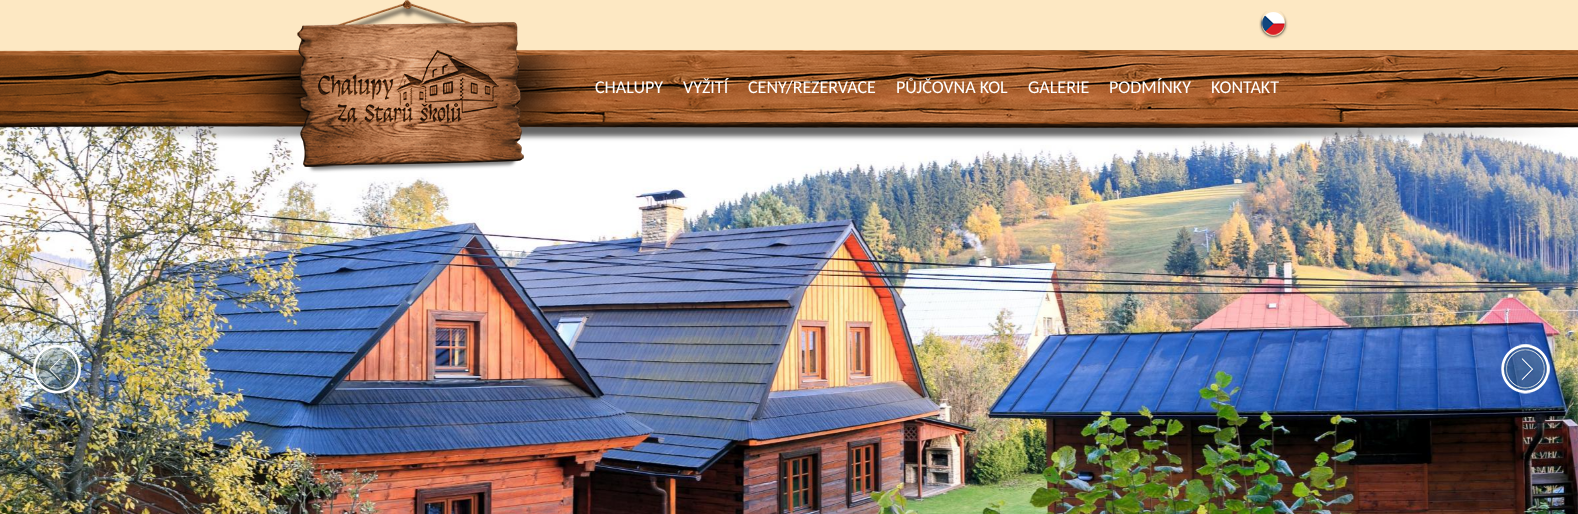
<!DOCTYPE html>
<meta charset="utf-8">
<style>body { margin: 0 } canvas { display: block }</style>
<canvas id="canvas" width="1578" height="514"></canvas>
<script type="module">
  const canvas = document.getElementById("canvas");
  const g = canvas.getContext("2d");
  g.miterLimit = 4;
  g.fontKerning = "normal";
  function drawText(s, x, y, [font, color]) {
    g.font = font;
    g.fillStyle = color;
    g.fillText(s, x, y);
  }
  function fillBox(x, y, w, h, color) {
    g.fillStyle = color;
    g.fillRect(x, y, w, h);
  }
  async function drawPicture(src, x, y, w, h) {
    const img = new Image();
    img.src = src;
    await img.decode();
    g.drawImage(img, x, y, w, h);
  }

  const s1 = ["18px Carlito", "#FFFFFF"];

  fillBox(0, 0, 1578, 514, "#FFFFFF");
  await drawPicture("pic3.png", 0, 126, 1578, 388);
  await drawPicture("pic1.png", 0, 0, 1578, 173);
  await drawPicture("pic2.png", 1259, 11, 29, 28);
  drawText("CHALUPY", 595, 93, s1);
  drawText("VYŽITÍ", 683, 93, s1);
  drawText("CENY/REZERVACE", 748, 93, s1);
  drawText("PŮJČOVNA KOL", 896, 93, s1);
  drawText("GALERIE", 1028, 93, s1);
  drawText("PODMÍNKY", 1109, 93, s1);
  drawText("KONTAKT", 1211, 93, s1);
  await drawPicture("pic4.png", 32, 344, 49, 50);
  await drawPicture("pic5.png", 1501, 344, 49, 50);
</script>
